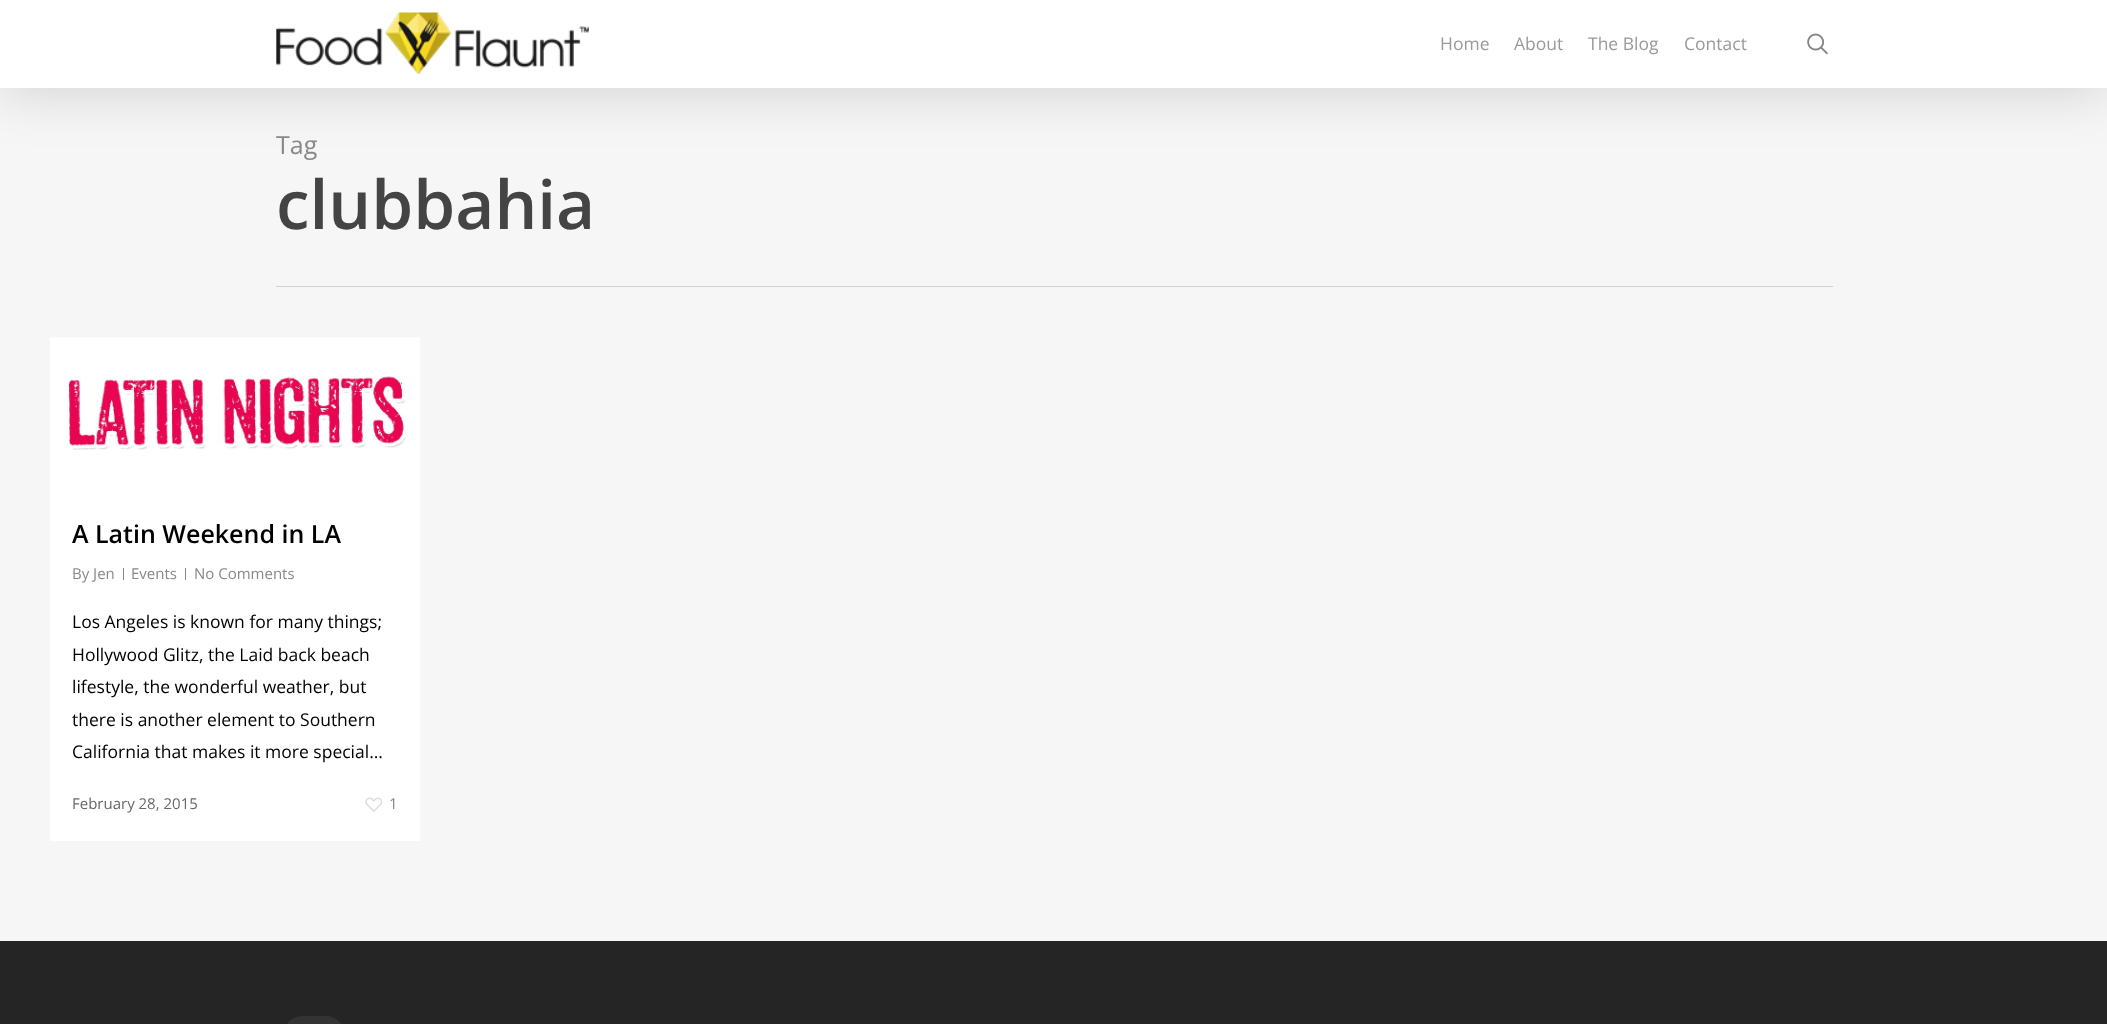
<!DOCTYPE html>
<meta charset="utf-8">
<style>body { margin: 0 } canvas { display: block }</style>
<canvas id="canvas" width="2107" height="1024"></canvas>
<script type="module">
  const canvas = document.getElementById("canvas");
  const g = canvas.getContext("2d");
  g.miterLimit = 4;
  g.fontKerning = "normal";
  function drawText(s, x, y, [font, color]) {
    g.font = font;
    g.fillStyle = color;
    g.fillText(s, x, y);
  }
  function fillBox(x, y, w, h, color) {
    g.fillStyle = color;
    g.fillRect(x, y, w, h);
  }
  function fillRounded(x, y, w, h, r, color) {
    g.fillStyle = color;
    g.beginPath();
    g.roundRect(x, y, w, h, r);
    g.fill();
  }
  async function drawPicture(src, x, y, w, h) {
    const img = new Image();
    img.src = src;
    await img.decode();
    g.drawImage(img, x, y, w, h);
  }

  const s1 = ["17.5px Open Sans", "#999999"];
  const s2 = ["25px Open Sans", "#888888"];
  const s3 = ["600 67.5px Open Sans", "#444444"];
  const s4 = ["600 25px Open Sans", "#000000"];
  const s5 = ["15px Open Sans", "#888888"];
  const s6 = ["17.5px Open Sans", "#000000"];
  const s7 = ["15px Open Sans", "#676767"];

  fillBox(0, 0, 2107, 1024, "#F6F6F6");
  g.fillStyle = "rgba(0, 0, 0, 0.15)";
  g.filter = "blur(28px)";
  g.beginPath();
  g.rect(0, 4, 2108, 87);
  g.fill();
  g.filter = "none";
  fillBox(0, 0, 2107, 88, "#FFFFFF");
  await drawPicture("pic1.png", 276, 12, 313, 62);
  drawText("Home", 1440, 50, s1);
  drawText("About", 1514, 50, s1);
  drawText("The Blog", 1588, 50, s1);
  drawText("Contact", 1684, 50, s1);
  await drawPicture("pic2.png", 1807, 33, 21, 22);
  fillBox(276, 286, 1557, 1, "#D1D1D1");
  drawText("Tag", 276, 154, s2);
  drawText("clubbahia", 276, 229, s3);
  fillBox(50, 450, 370, 391, "#FFFFFF");
  await drawPicture("pic3.png", 50, 337, 370, 113);
  drawText("A Latin Weekend in LA", 72, 543, s4);
  drawText("By Jen", 72, 579, s5);
  fillBox(123, 568, 1, 12, "#888888");
  drawText("Events", 131, 579, s5);
  fillBox(185, 568, 1, 12, "#888888");
  drawText("No Comments", 194, 579, s5);
  drawText("Los Angeles is known for many things;", 72, 628, s6);
  drawText("Hollywood Glitz, the Laid back beach", 72, 661, s6);
  drawText("lifestyle, the wonderful weather, but", 72, 693, s6);
  drawText("there is another element to Southern", 72, 726, s6);
  drawText("California that makes it more special…", 72, 758, s6);
  drawText("February 28, 2015", 72, 809, s7);
  await drawPicture("pic4.png", 365, 797, 18, 15);
  drawText("1", 389, 809, s5);
  fillBox(0, 941, 2107, 83, "#252525");
  fillRounded(283, 1016, 62, 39, 31, "#333333");
</script>
